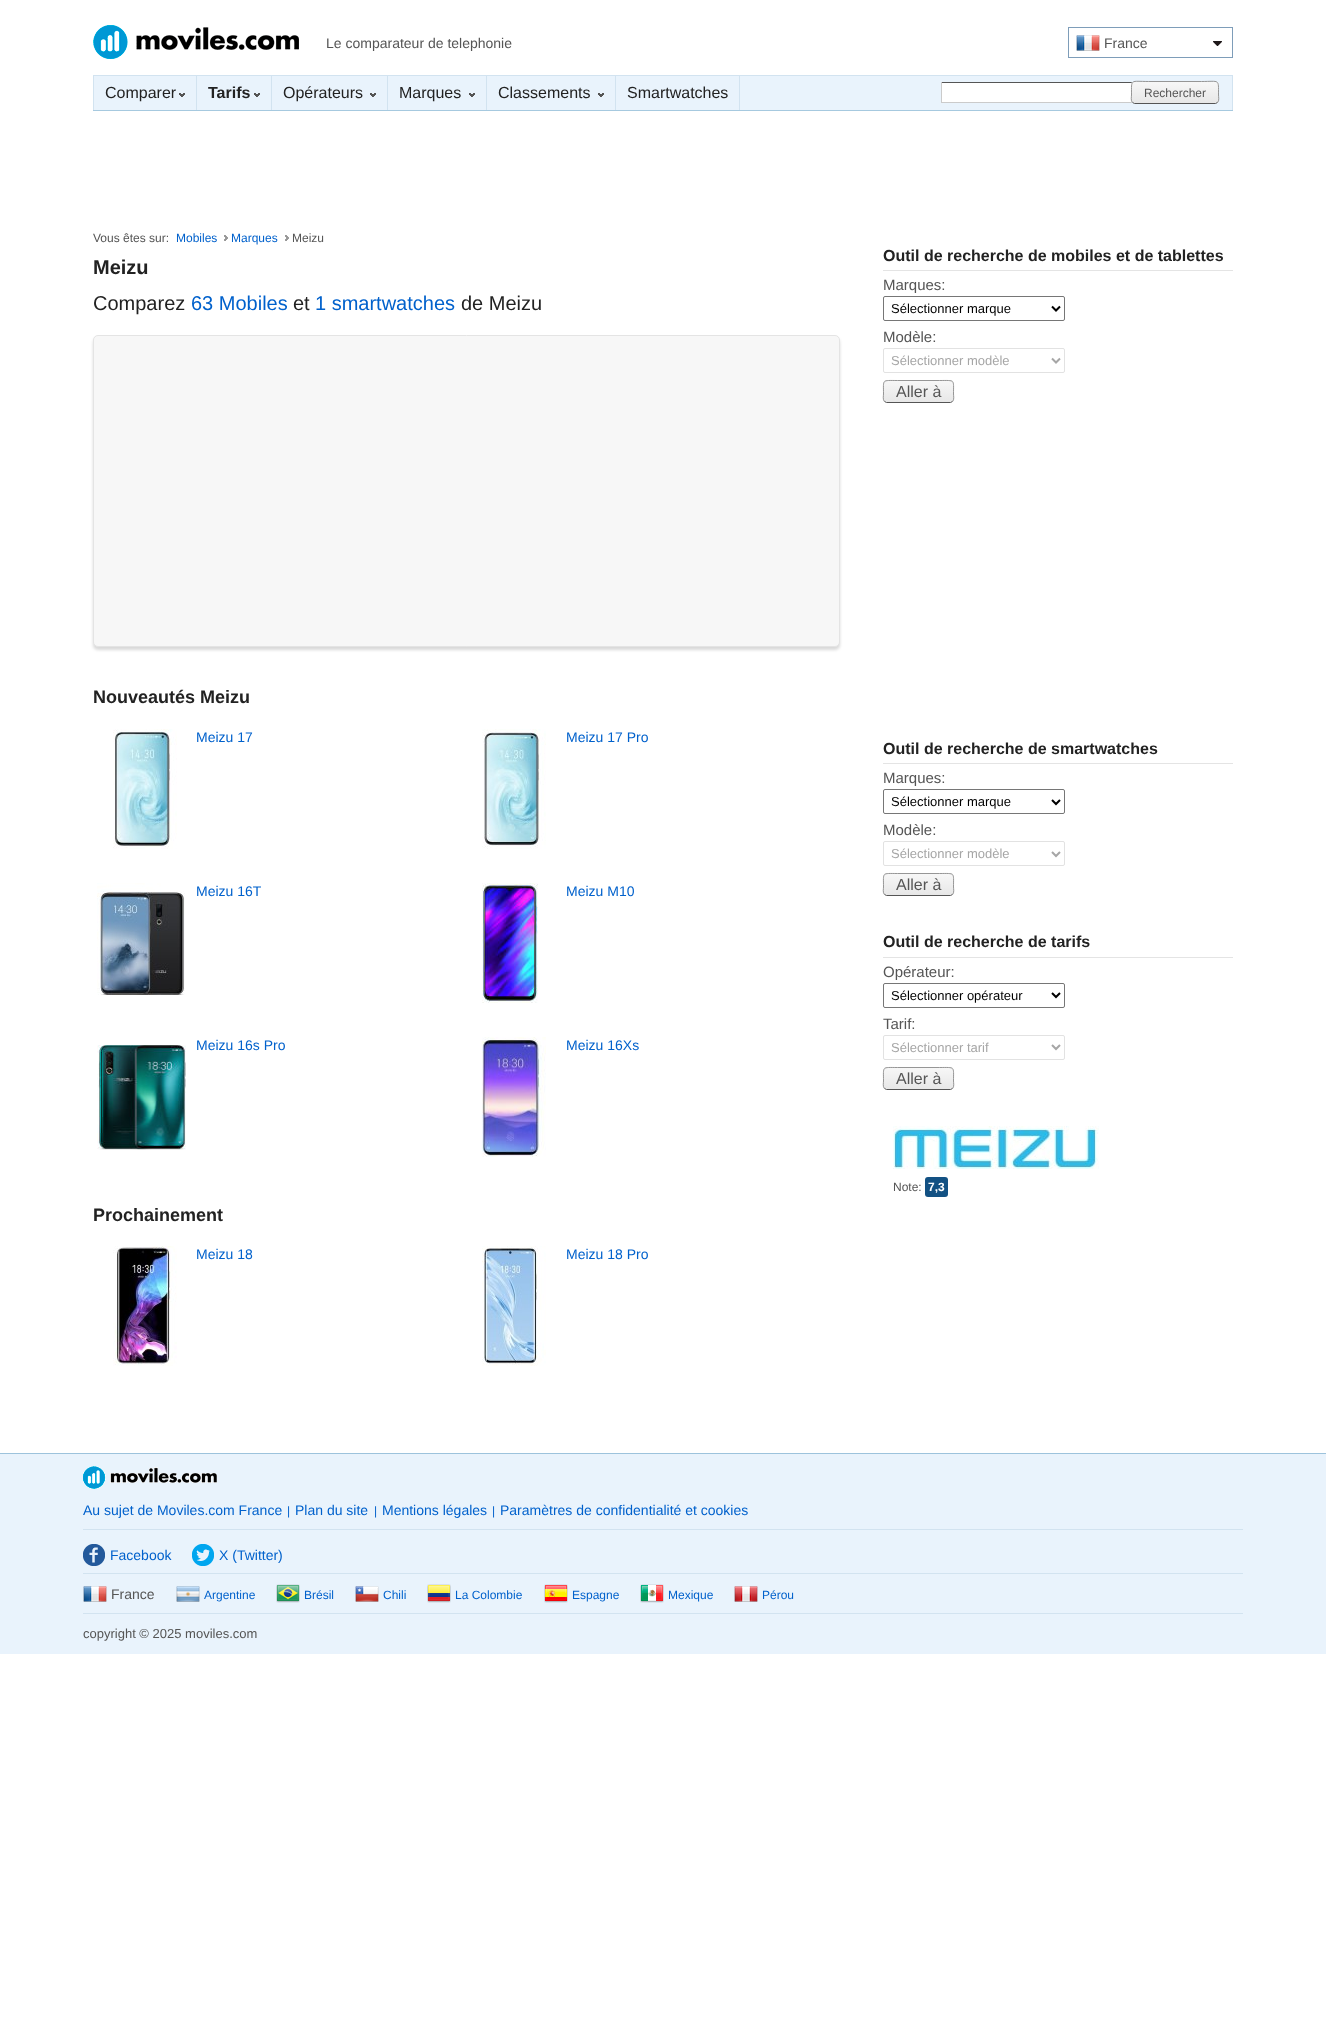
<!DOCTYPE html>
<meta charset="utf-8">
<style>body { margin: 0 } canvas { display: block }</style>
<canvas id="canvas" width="1326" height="2032"></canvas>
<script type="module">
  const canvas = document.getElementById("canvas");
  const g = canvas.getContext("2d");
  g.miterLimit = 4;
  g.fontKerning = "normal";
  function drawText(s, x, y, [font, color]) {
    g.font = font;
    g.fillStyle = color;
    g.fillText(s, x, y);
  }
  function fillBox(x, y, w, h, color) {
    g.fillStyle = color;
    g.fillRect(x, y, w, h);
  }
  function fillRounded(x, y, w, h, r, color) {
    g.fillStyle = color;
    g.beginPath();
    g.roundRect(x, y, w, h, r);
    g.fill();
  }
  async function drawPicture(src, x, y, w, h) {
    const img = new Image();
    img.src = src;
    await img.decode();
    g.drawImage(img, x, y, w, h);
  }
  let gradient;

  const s1 = ["14px Liberation Sans", "#555555"];
  const s2 = ["16px Liberation Sans", "#222222"];
  const s3 = ["bold 16px Liberation Sans", "#222222"];
  const s4 = ["12px Liberation Sans", "#555555"];
  const s5 = ["12px Liberation Sans", "#0061CC"];
  const s6 = ["bold 20px Liberation Sans", "#222222"];
  const s7 = ["20px Liberation Sans", "#222222"];
  const s8 = ["20px Liberation Sans", "#0061CC"];
  const s9 = ["bold 18px Liberation Sans", "#222222"];
  const s10 = ["14px Liberation Sans", "#0061CC"];
  const s11 = ["15px Liberation Sans", "#555555"];
  const s12 = ["13px Liberation Sans", "#000000"];
  const s13 = ["13px Liberation Sans", "#A6A6A6"];
  const s14 = ["16px Liberation Sans", "#555555"];
  const s15 = ["bold 12px Liberation Sans", "#FFFFFF"];
  const s16 = ["13px Liberation Sans", "#555555"];

  fillBox(0, 0, 1326, 2032, "#FFFFFF");
  fillBox(93, 75, 1140, 1, "#D2E3F0");
  await drawPicture("pic1.png", 93, 25, 206, 34);
  drawText("Le comparateur de telephonie", 326, 48, s1);
  g.strokeStyle = "#7E9DB9";
  g.strokeRect(1068.5, 27.5, 164, 30);
  await drawPicture("pic2.png", 1076, 35, 24, 16);
  drawText("France", 1104, 48, s1);
  await drawPicture("pic3.png", 1213, 41, 9, 5);
  fillBox(94, 76, 1138, 34, "#E9F3FC");
  fillBox(93, 110, 1140, 1, "#A6C9DF");
  fillBox(1232, 76, 1, 34, "#D2E3F0");
  fillBox(93, 76, 1, 34, "#D2E3F0");
  fillBox(196, 76, 1, 34, "#D2E3F0");
  drawText("Comparer", 105, 98, s2);
  await drawPicture("pic4.png", 179, 93, 6, 4);
  fillBox(271, 76, 1, 34, "#D2E3F0");
  drawText("Tarifs", 208, 98, s3);
  await drawPicture("pic4.png", 254, 93, 6, 4);
  fillBox(387, 76, 1, 34, "#D2E3F0");
  drawText("Opérateurs", 283, 98, s2);
  await drawPicture("pic4.png", 370, 93, 6, 4);
  fillBox(486, 76, 1, 34, "#D2E3F0");
  drawText("Marques", 399, 98, s2);
  await drawPicture("pic4.png", 469, 93, 6, 4);
  fillBox(615, 76, 1, 34, "#D2E3F0");
  drawText("Classements", 498, 98, s2);
  await drawPicture("pic4.png", 598, 93, 6, 4);
  fillBox(739, 76, 1, 34, "#D2E3F0");
  drawText("Smartwatches", 627, 98, s2);
  fillBox(942, 83, 190, 19, "#FFFFFF");
  fillBox(941, 82, 196, 1, "#555555");
  fillBox(941, 102, 196, 1, "#CBCBCB");
  fillBox(941, 82, 1, 21, "#CBCBCB");
  g.save();
  g.beginPath();
  g.roundRect(1131, 81, 88, 23, 4);
  g.clip();
  gradient = g.createLinearGradient(1175, 82, 1175, 103);
  gradient.addColorStop(0, "#F7F7F7");
  gradient.addColorStop(1, "#E7E7E7");
  g.fillStyle = gradient;
  g.fillRect(1131, 82, 88, 21);
  g.restore();
  g.beginPath();
  g.moveTo(1217.5, 102.5);
  g.lineTo(1215.5, 103.5);
  g.lineTo(1134.5, 103.5);
  g.lineTo(1132.5, 102.5);
  g.strokeStyle = "#555555";
  g.stroke();
  g.beginPath();
  g.moveTo(1132.5, 102.5);
  g.bezierCurveTo(1130.5, 100.5, 1131.5, 97, 1131.5, 95);
  g.bezierCurveTo(1131.5, 78.5, 1130, 81.5, 1148.5, 81.5);
  g.lineTo(1201.5, 81.5);
  g.bezierCurveTo(1220, 81.5, 1218.5, 78.5, 1218.5, 95);
  g.bezierCurveTo(1218.5, 97, 1219.5, 100.5, 1217.5, 102.5);
  g.strokeStyle = "#969696";
  g.stroke();
  drawText("Rechercher", 1144, 97, s4);
  drawText("Vous êtes sur:", 93, 242, s4);
  drawText("Mobiles", 176, 242, s5);
  await drawPicture("pic5.png", 224, 235, 4, 6);
  drawText("Marques", 231, 242, s5);
  await drawPicture("pic5.png", 285, 235, 4, 6);
  drawText("Meizu", 292, 242, s4);
  drawText("Meizu", 93, 274, s6);
  drawText("Comparez", 93, 310, s7);
  drawText("63 Mobiles", 191, 310, s8);
  drawText("et", 293, 310, s7);
  drawText("1 smartwatches", 315, 310, s8);
  drawText("de Meizu", 461, 310, s7);
  g.fillStyle = "rgba(0, 0, 0, 0.15)";
  g.filter = "blur(1.5px)";
  g.beginPath();
  g.roundRect(93, 338, 747, 312, 5);
  g.fill();
  g.filter = "none";
  g.fillStyle = "#F7F7F7";
  g.beginPath();
  g.roundRect(93.5, 335.5, 746, 311, 4.5);
  g.fill();
  g.strokeStyle = "#E4E4E4";
  g.stroke();
  drawText("Nouveautés Meizu", 93, 703, s9);
  await drawPicture("pic6.png", 113, 729, 64, 120);
  drawText("Meizu 17", 196, 742, s10);
  await drawPicture("pic7.png", 482, 729, 64, 120);
  drawText("Meizu 17 Pro", 566, 742, s10);
  await drawPicture("pic8.png", 97, 883, 88, 112);
  drawText("Meizu 16T", 196, 896, s10);
  await drawPicture("pic9.png", 482, 883, 56, 120);
  drawText("Meizu M10", 566, 896, s10);
  await drawPicture("pic10.png", 97, 1045, 89, 105);
  drawText("Meizu 16s Pro", 196, 1050, s10);
  await drawPicture("pic11.png", 481, 1037, 65, 120);
  drawText("Meizu 16Xs", 566, 1050, s10);
  drawText("Prochainement", 93, 1221, s9);
  await drawPicture("pic12.png", 113, 1246, 64, 120);
  drawText("Meizu 18", 196, 1259, s10);
  await drawPicture("pic13.png", 482, 1246, 64, 120);
  drawText("Meizu 18 Pro", 566, 1259, s10);
  fillBox(883, 270, 350, 1, "#E4E4E4");
  drawText("Outil de recherche de mobiles et de tablettes", 883, 261, s3);
  drawText("Marques:", 883, 290, s11);
  g.beginPath();
  g.roundRect(883.5, 296.5, 181, 24, 1.5);
  g.strokeStyle = "#767676";
  g.stroke();
  g.beginPath();
  g.moveTo(1052, 306.5);
  g.lineTo(1056, 310.5);
  g.lineTo(1060, 306.5);
  g.strokeStyle = "#000000";
  g.lineWidth = 2;
  g.stroke();
  drawText("Sélectionner marque", 891, 313, s12);
  drawText("Modèle:", 883, 342, s11);
  g.beginPath();
  g.roundRect(883.5, 348.5, 181, 24, 1.5);
  g.strokeStyle = "#E2E2E2";
  g.lineWidth = 1;
  g.stroke();
  g.beginPath();
  g.moveTo(1052, 358.5);
  g.lineTo(1056, 362.5);
  g.lineTo(1060, 358.5);
  g.strokeStyle = "#A6A6A6";
  g.lineWidth = 2;
  g.stroke();
  drawText("Sélectionner modèle", 891, 365, s13);
  g.save();
  g.beginPath();
  g.roundRect(883, 380, 71, 23, 4);
  g.clip();
  gradient = g.createLinearGradient(919, 360, 919, 381);
  gradient.addColorStop(0, "#F7F7F7");
  gradient.addColorStop(1, "#E7E7E7");
  g.fillStyle = gradient;
  g.fillRect(883, 380, 71, 1);
  gradient = g.createLinearGradient(919, 381, 919, 402);
  gradient.addColorStop(0, "#F7F7F7");
  gradient.addColorStop(1, "#E7E7E7");
  g.fillStyle = gradient;
  g.fillRect(883, 381, 71, 21);
  g.restore();
  g.beginPath();
  g.moveTo(952.5, 401.5);
  g.lineTo(950.5, 402.5);
  g.lineTo(886.5, 402.5);
  g.lineTo(884.5, 401.5);
  g.strokeStyle = "#555555";
  g.lineWidth = 1;
  g.stroke();
  g.beginPath();
  g.moveTo(884.5, 401.5);
  g.bezierCurveTo(882.5, 399.5, 883.5, 396, 883.5, 394);
  g.bezierCurveTo(883.5, 379, 881.5, 380.5, 897.5, 380.5);
  g.lineTo(939.5, 380.5);
  g.bezierCurveTo(955.5, 380.5, 953.5, 379, 953.5, 394);
  g.bezierCurveTo(953.5, 396, 954.5, 399.5, 952.5, 401.5);
  g.strokeStyle = "#969696";
  g.stroke();
  drawText("Aller à", 896, 397, s14);
  fillBox(883, 763, 350, 1, "#E4E4E4");
  drawText("Outil de recherche de smartwatches", 883, 754, s3);
  drawText("Marques:", 883, 783, s11);
  g.beginPath();
  g.roundRect(883.5, 789.5, 181, 24, 1.5);
  g.strokeStyle = "#767676";
  g.stroke();
  g.beginPath();
  g.moveTo(1052, 800);
  g.lineTo(1056, 804);
  g.lineTo(1060, 800);
  g.strokeStyle = "#000000";
  g.lineWidth = 2;
  g.stroke();
  drawText("Sélectionner marque", 891, 806, s12);
  drawText("Modèle:", 883, 835, s11);
  g.beginPath();
  g.roundRect(883.5, 841.5, 181, 24, 1.5);
  g.strokeStyle = "#E2E2E2";
  g.lineWidth = 1;
  g.stroke();
  g.beginPath();
  g.moveTo(1052, 852);
  g.lineTo(1056, 856);
  g.lineTo(1060, 852);
  g.strokeStyle = "#A6A6A6";
  g.lineWidth = 2;
  g.stroke();
  drawText("Sélectionner modèle", 891, 858, s13);
  g.save();
  g.beginPath();
  g.roundRect(883, 873, 71, 23, 4);
  g.clip();
  gradient = g.createLinearGradient(919, 853, 919, 874);
  gradient.addColorStop(0, "#F7F7F7");
  gradient.addColorStop(1, "#E7E7E7");
  g.fillStyle = gradient;
  g.fillRect(883, 873, 71, 1);
  gradient = g.createLinearGradient(919, 874, 919, 895);
  gradient.addColorStop(0, "#F7F7F7");
  gradient.addColorStop(1, "#E7E7E7");
  g.fillStyle = gradient;
  g.fillRect(883, 874, 71, 21);
  g.restore();
  g.beginPath();
  g.moveTo(952.5, 894.5);
  g.lineTo(950.5, 895.5);
  g.lineTo(886.5, 895.5);
  g.lineTo(884.5, 894.5);
  g.strokeStyle = "#555555";
  g.lineWidth = 1;
  g.stroke();
  g.beginPath();
  g.moveTo(884.5, 894.5);
  g.bezierCurveTo(882.5, 892.5, 883.5, 889, 883.5, 887);
  g.bezierCurveTo(883.5, 872, 881.5, 873.5, 897.5, 873.5);
  g.lineTo(939.5, 873.5);
  g.bezierCurveTo(955.5, 873.5, 953.5, 872, 953.5, 887);
  g.bezierCurveTo(953.5, 889, 954.5, 892.5, 952.5, 894.5);
  g.strokeStyle = "#969696";
  g.stroke();
  drawText("Aller à", 896, 890, s14);
  fillBox(883, 957, 350, 1, "#E4E4E4");
  drawText("Outil de recherche de tarifs", 883, 947, s3);
  drawText("Opérateur:", 883, 977, s11);
  g.beginPath();
  g.roundRect(883.5, 983.5, 181, 24, 1.5);
  g.strokeStyle = "#767676";
  g.stroke();
  g.beginPath();
  g.moveTo(1052, 993);
  g.lineTo(1056, 997);
  g.lineTo(1060, 993);
  g.strokeStyle = "#000000";
  g.lineWidth = 2;
  g.stroke();
  drawText("Sélectionner opérateur", 891, 1000, s12);
  drawText("Tarif:", 883, 1029, s11);
  g.beginPath();
  g.roundRect(883.5, 1035.5, 181, 24, 1.5);
  g.strokeStyle = "#E2E2E2";
  g.lineWidth = 1;
  g.stroke();
  g.beginPath();
  g.moveTo(1052, 1045);
  g.lineTo(1056, 1049);
  g.lineTo(1060, 1045);
  g.strokeStyle = "#A6A6A6";
  g.lineWidth = 2;
  g.stroke();
  drawText("Sélectionner tarif", 891, 1052, s13);
  g.save();
  g.beginPath();
  g.roundRect(883, 1067, 71, 23, 4);
  g.clip();
  gradient = g.createLinearGradient(919, 1047, 919, 1068);
  gradient.addColorStop(0, "#F7F7F7");
  gradient.addColorStop(1, "#E7E7E7");
  g.fillStyle = gradient;
  g.fillRect(883, 1067, 71, 1);
  gradient = g.createLinearGradient(919, 1068, 919, 1089);
  gradient.addColorStop(0, "#F7F7F7");
  gradient.addColorStop(1, "#E7E7E7");
  g.fillStyle = gradient;
  g.fillRect(883, 1068, 71, 21);
  g.restore();
  g.beginPath();
  g.moveTo(952.5, 1088.5);
  g.lineTo(950.5, 1089.5);
  g.lineTo(886.5, 1089.5);
  g.lineTo(884.5, 1088.5);
  g.strokeStyle = "#555555";
  g.lineWidth = 1;
  g.stroke();
  g.beginPath();
  g.moveTo(884.5, 1088.5);
  g.bezierCurveTo(882.5, 1086.5, 883.5, 1083, 883.5, 1081);
  g.bezierCurveTo(883.5, 1066, 881.5, 1067.5, 897.5, 1067.5);
  g.lineTo(939.5, 1067.5);
  g.bezierCurveTo(955.5, 1067.5, 953.5, 1066, 953.5, 1081);
  g.bezierCurveTo(953.5, 1083, 954.5, 1086.5, 952.5, 1088.5);
  g.strokeStyle = "#969696";
  g.stroke();
  drawText("Aller à", 896, 1084, s14);
  await drawPicture("pic14.png", 893, 1126, 206, 43);
  drawText("Note:", 893, 1191, s4);
  fillRounded(925, 1177, 23, 20, 3, "#135183");
  drawText("7,3", 928, 1191, s15);
  fillBox(0, 1454, 1326, 200, "#E9F3FC");
  fillBox(0, 1453, 1326, 1, "#9DC3DC");
  await drawPicture("pic15.png", 83, 1466, 134, 23);
  fillBox(83, 1529, 1160, 1, "#D2E3F0");
  drawText("Au sujet de Moviles.com France", 83, 1515, s10);
  drawText("|", 287, 1515, s5);
  drawText("Plan du site", 295, 1515, s10);
  drawText("|", 374, 1515, s5);
  drawText("Mentions légales", 382, 1515, s10);
  drawText("|", 492, 1515, s5);
  drawText("Paramètres de confidentialité et cookies", 500, 1515, s10);
  fillBox(83, 1573, 1160, 1, "#D2E3F0");
  await drawPicture("pic16.png", 83, 1544, 22, 22);
  drawText("Facebook", 110, 1560, s10);
  await drawPicture("pic17.png", 192, 1544, 22, 22);
  drawText("X (Twitter)", 219, 1560, s10);
  fillBox(83, 1613, 1160, 1, "#D2E3F0");
  await drawPicture("pic18.png", 83, 1586, 24, 16);
  drawText("France", 111, 1599, s1);
  await drawPicture("pic19.png", 176, 1586, 24, 16);
  drawText("Argentine", 204, 1599, s5);
  await drawPicture("pic20.png", 276, 1584, 24, 19);
  drawText("Brésil", 304, 1599, s5);
  await drawPicture("pic21.png", 355, 1586, 24, 16);
  drawText("Chili", 383, 1599, s5);
  await drawPicture("pic22.png", 427, 1584, 24, 19);
  drawText("La Colombie", 455, 1599, s5);
  await drawPicture("pic23.png", 544, 1584, 24, 19);
  drawText("Espagne", 572, 1599, s5);
  await drawPicture("pic24.png", 640, 1584, 24, 19);
  drawText("Mexique", 668, 1599, s5);
  await drawPicture("pic25.png", 734, 1586, 24, 16);
  drawText("Pérou", 762, 1599, s5);
  drawText("copyright © 2025 moviles.com", 83, 1638, s16);
</script>
